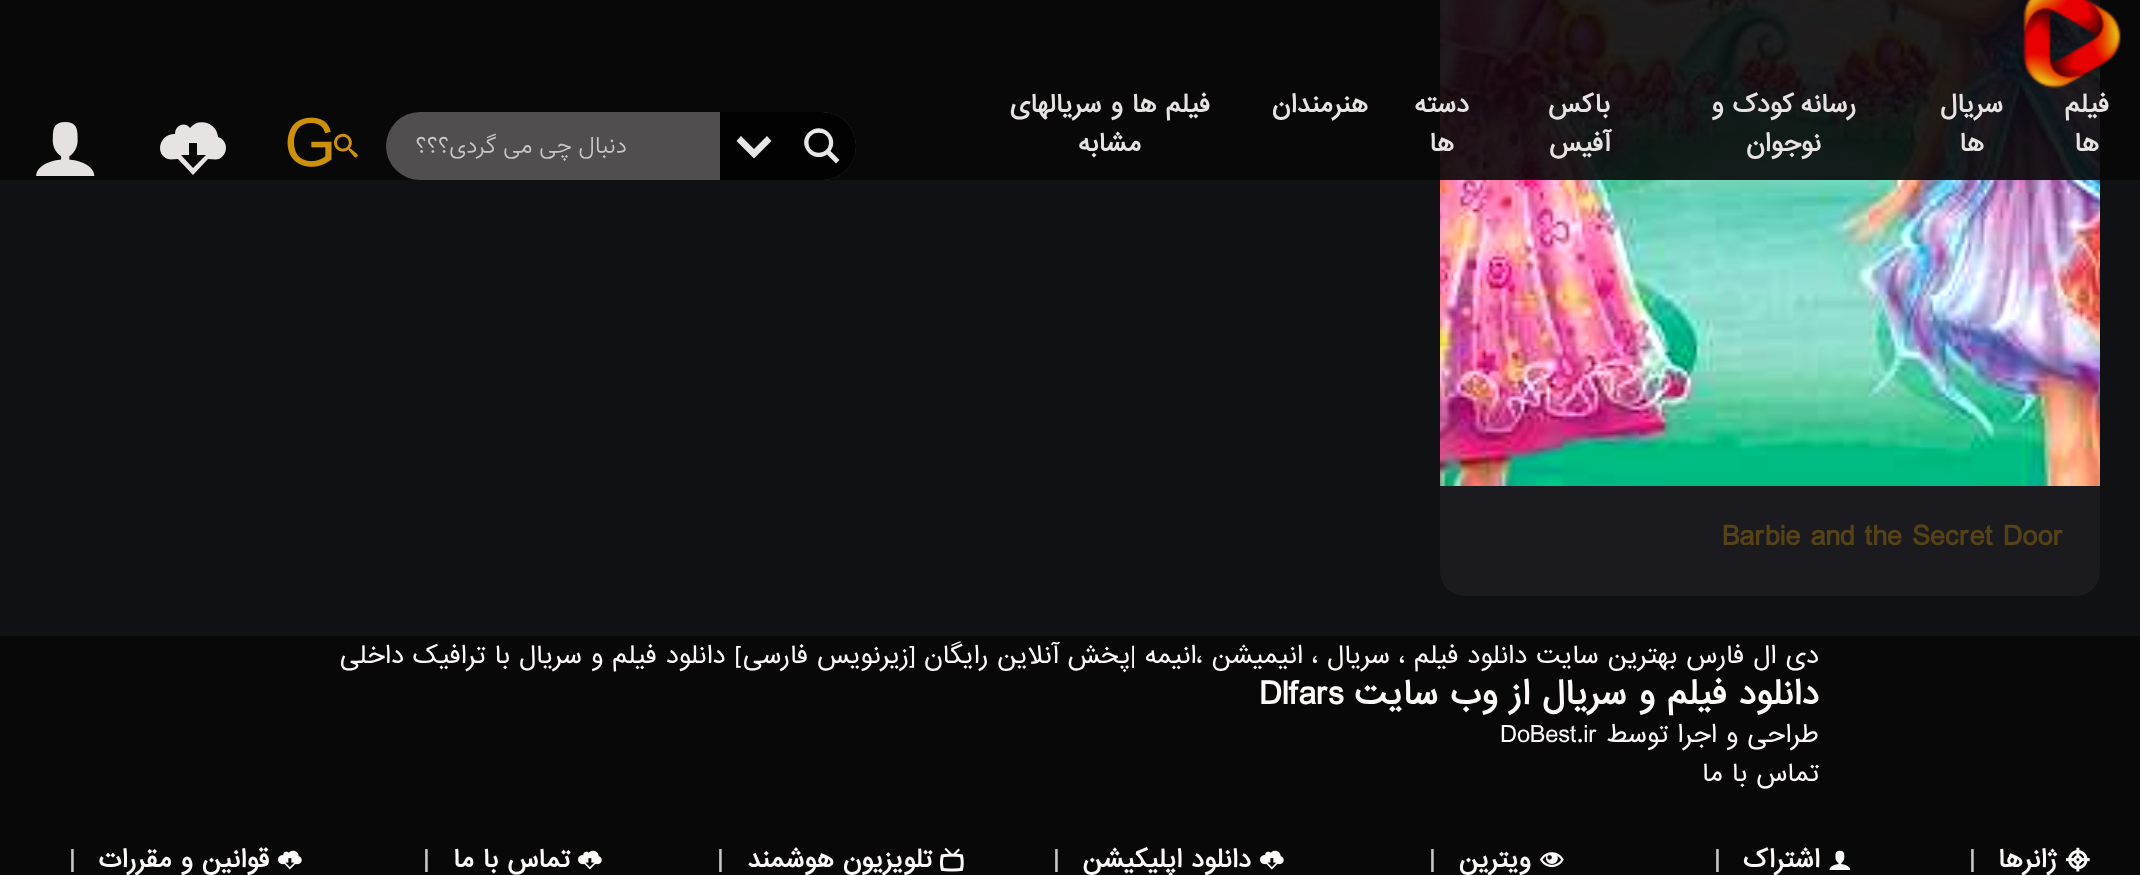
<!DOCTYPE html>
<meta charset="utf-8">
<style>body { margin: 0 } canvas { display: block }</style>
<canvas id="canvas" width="2140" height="875"></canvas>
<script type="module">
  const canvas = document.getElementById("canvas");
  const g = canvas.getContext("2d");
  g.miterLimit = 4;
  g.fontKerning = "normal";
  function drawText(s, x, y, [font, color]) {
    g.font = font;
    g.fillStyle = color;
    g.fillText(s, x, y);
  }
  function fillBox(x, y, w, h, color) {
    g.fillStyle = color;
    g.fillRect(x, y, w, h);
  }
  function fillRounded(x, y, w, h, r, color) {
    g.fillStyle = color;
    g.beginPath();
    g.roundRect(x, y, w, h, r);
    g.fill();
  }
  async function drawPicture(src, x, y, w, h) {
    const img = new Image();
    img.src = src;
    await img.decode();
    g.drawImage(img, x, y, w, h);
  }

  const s1 = ["bold 23.7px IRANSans", "#E8E3E3"];
  const s2 = ["300 23.7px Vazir", "#C7C7C8"];
  const s3 = ["bold 27.25px IRANSans", "#564219"];
  const s4 = ["23.7px IRANSans", "#FFFAFA"];
  const s5 = ["bold 31.75px IRANSans", "#FFFAFA"];
  const s6 = ["bold 23.7px IRANSans", "#FFFAFA"];
  const s7 = ["bold 23.7px IRANSans", "#C7C7C8"];

  fillBox(0, 0, 2140, 875, "#0F1114");
  fillRounded(1440, -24, 660, 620, 24, "#1A1A1F");
  await drawPicture("pic5.png", 1440, 0, 660, 486);
  fillBox(0, 0, 2140, 180, "rgba(8, 8, 8, 0.9)");
  await drawPicture("pic1.png", 2023, 0, 98, 89);
  g.direction = "rtl";
  drawText("فیلم", 2109, 112, s1);
  drawText("ها", 2099, 151, s1);
  drawText("سریال", 2003, 112, s1);
  drawText("ها", 1984, 151, s1);
  drawText("رسانه کودک و", 1856, 112, s1);
  drawText("نوجوان", 1821, 151, s1);
  drawText("باکس", 1610, 112, s1);
  drawText("آفیس", 1610, 151, s1);
  drawText("دسته", 1469, 112, s1);
  drawText("ها", 1454, 151, s1);
  drawText("هنرمندان", 1368, 112, s1);
  drawText("فیلم ها و سریالهای", 1210, 112, s1);
  drawText("مشابه", 1141, 151, s1);
  fillRounded(386, 112, 470, 68, 34, "#504E4F");
  g.fillStyle = "#020202";
  g.beginPath();
  g.roundRect(788, 112, 68, 68, [0, 34, 34, 0]);
  g.fill();
  g.fillStyle = "#E7E7E8";
  g.beginPath();
  g.moveTo(839.5, 160);
  g.lineTo(830.5, 151);
  g.bezierCurveTo(840.5, 137, 821.5, 120, 808.5, 132.5);
  g.bezierCurveTo(796, 145, 813, 164, 827, 154.5);
  g.lineTo(836, 163.5);
  g.closePath();
  g.moveTo(808.5, 142.5);
  g.bezierCurveTo(808.5, 129.5, 829, 129.5, 829, 142.5);
  g.bezierCurveTo(829, 156, 808.5, 156, 808.5, 142.5);
  g.closePath();
  g.fill();
  fillBox(720, 112, 68, 68, "#020202");
  g.fillStyle = "#E7E7E8";
  g.beginPath();
  g.moveTo(767, 136);
  g.lineTo(771.5, 141);
  g.lineTo(754, 158.5);
  g.lineTo(736.5, 141);
  g.lineTo(741, 136);
  g.lineTo(754, 149);
  g.closePath();
  g.fill();
  drawText("دنبال چی می گردی؟؟؟", 627, 153, s2);
  await drawPicture("pic2.png", 334, 133, 24, 25);
  await drawPicture("pic3.png", 287, 117, 45, 50);
  g.fillStyle = "#E7E3E3";
  g.beginPath();
  g.moveTo(218, 137);
  g.bezierCurveTo(217, 123, 199, 117, 190, 128);
  g.bezierCurveTo(185, 121, 175, 125, 175, 134);
  g.bezierCurveTo(160, 133, 154, 154, 168, 159);
  g.bezierCurveTo(171, 160, 175, 159, 178, 159);
  g.lineTo(193, 175);
  g.lineTo(208, 159);
  g.bezierCurveTo(212, 159, 216, 160, 219, 159);
  g.bezierCurveTo(229, 154, 228, 140, 218, 137);
  g.closePath();
  g.moveTo(193, 168);
  g.lineTo(181, 155);
  g.lineTo(189, 155);
  g.lineTo(189, 143);
  g.lineTo(197, 143);
  g.lineTo(197, 155);
  g.lineTo(206, 155);
  g.closePath();
  g.fill();
  await drawPicture("pic4.png", 36, 122, 59, 54);
  g.direction = "ltr";
  drawText("Barbie and the Secret Door", 1722, 545, s3);
  fillBox(0, 636, 2140, 239, "#080808");
  g.direction = "rtl";
  drawText("دی ال فارس بهترین سایت دانلود فیلم ، سریال ، انیمیشن ،انیمه |پخش آنلاین رایگان [زیرنویس فارسی] دانلود فیلم و سریال با ترافیک داخلی", 1819, 663, s4);
  drawText("دانلود فیلم و سریال از وب سایت", 1819, 704, s5);
  g.direction = "ltr";
  drawText("Dlfars", 1259, 704, s5);
  g.direction = "rtl";
  drawText("طراحی و اجرا توسط", 1819, 742, s4);
  g.direction = "ltr";
  drawText("DoBest.ir", 1500, 742, s4);
  g.direction = "rtl";
  drawText("تماس با ما", 1819, 781, s4);
  await drawPicture("pic6.png", 2066, 847, 24, 25);
  drawText("ژانرها", 2057, 867, s6);
  g.direction = "ltr";
  drawText("|", 1969, 867, s7);
  await drawPicture("pic7.png", 1829, 850, 22, 20);
  g.direction = "rtl";
  drawText("اشتراک", 1820, 867, s6);
  g.direction = "ltr";
  drawText("|", 1714, 867, s7);
  await drawPicture("pic8.png", 1540, 852, 24, 15);
  g.direction = "rtl";
  drawText("ویترین", 1531, 867, s6);
  g.direction = "ltr";
  drawText("|", 1429, 867, s7);
  await drawPicture("pic9.png", 1260, 850, 24, 20);
  g.direction = "rtl";
  drawText("دانلود اپلیکیشن", 1251, 867, s6);
  g.direction = "ltr";
  drawText("|", 1053, 867, s7);
  await drawPicture("pic10.png", 940, 847, 24, 25);
  g.direction = "rtl";
  drawText("تلویزیون هوشمند", 932, 867, s6);
  g.direction = "ltr";
  drawText("|", 717, 867, s7);
  await drawPicture("pic9.png", 578, 850, 24, 20);
  g.direction = "rtl";
  drawText("تماس با ما", 570, 867, s6);
  g.direction = "ltr";
  drawText("|", 423, 867, s7);
  await drawPicture("pic9.png", 278, 850, 24, 20);
  g.direction = "rtl";
  drawText("قوانین و مقررات", 269, 867, s6);
  g.direction = "ltr";
  drawText("|", 69, 867, s7);
</script>
